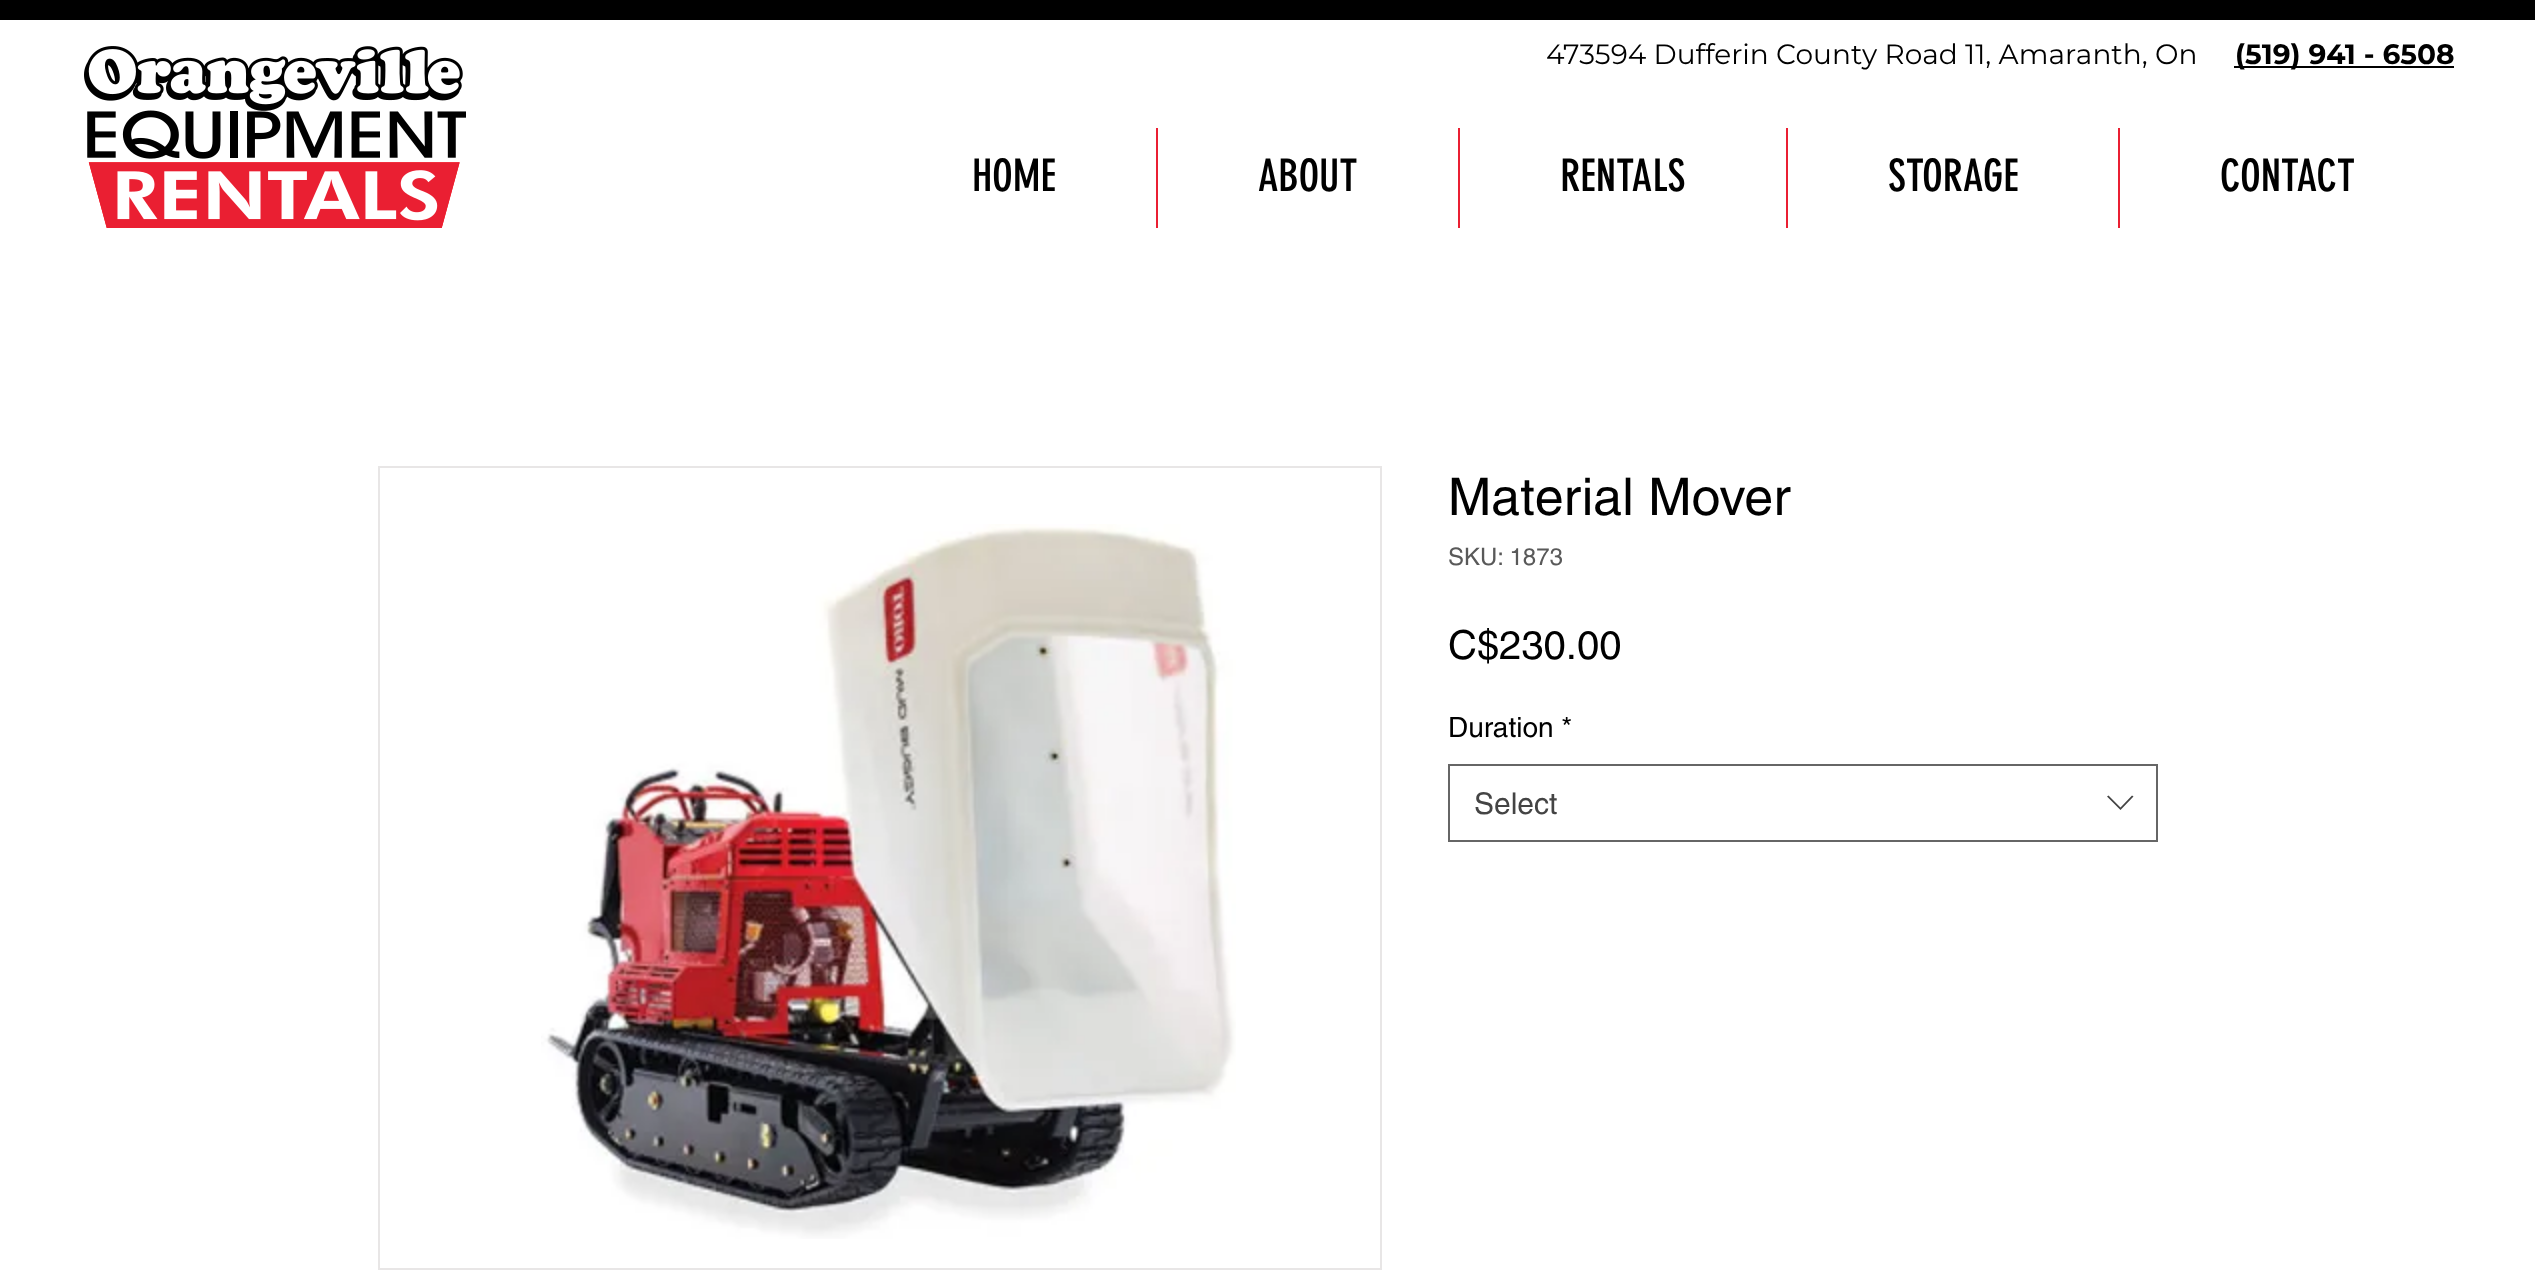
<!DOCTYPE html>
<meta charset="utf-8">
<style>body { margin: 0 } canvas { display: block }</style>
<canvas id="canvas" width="2535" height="1277"></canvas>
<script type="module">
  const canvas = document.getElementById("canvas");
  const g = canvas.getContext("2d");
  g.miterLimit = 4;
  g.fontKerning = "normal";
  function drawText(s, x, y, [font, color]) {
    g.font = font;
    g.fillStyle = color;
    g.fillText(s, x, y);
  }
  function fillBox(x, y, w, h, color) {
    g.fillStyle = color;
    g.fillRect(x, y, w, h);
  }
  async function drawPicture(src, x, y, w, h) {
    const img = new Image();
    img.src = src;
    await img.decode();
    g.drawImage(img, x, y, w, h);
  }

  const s1 = ["28px Montserrat", "#000000"];
  const s2 = ["bold 28px Montserrat", "#000000"];
  const s3 = ["44px 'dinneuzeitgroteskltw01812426'", "#000000"];
  const s4 = ["52px helvetica", "#000000"];
  const s5 = ["24px helvetica", "#595959"];
  const s6 = ["40px helvetica", "#000000"];
  const s7 = ["28px helvetica", "#000000"];
  const s8 = ["30px helvetica", "#444444"];

  fillBox(0, 0, 2535, 1277, "#FFFFFF");
  fillBox(0, 0, 2535, 20, "#000000");
  await drawPicture("pic1.png", 84, 46, 382, 182);
  drawText("473594 Dufferin County Road 11, Amaranth, On", 1546, 64, s1);
  fillBox(2234, 66, 220, 2, "#000000");
  drawText("(519) 941 - 6508", 2235, 64, s2);
  drawText("HOME", 972, 191, s3);
  fillBox(1156, 128, 2, 100, "#EA1F32");
  drawText("ABOUT", 1258, 191, s3);
  fillBox(1458, 128, 2, 100, "#EA1F32");
  drawText("RENTALS", 1560, 191, s3);
  fillBox(1786, 128, 2, 100, "#EA1F32");
  drawText("STORAGE", 1888, 191, s3);
  fillBox(2118, 128, 2, 100, "#EA1F32");
  drawText("CONTACT", 2220, 191, s3);
  g.strokeStyle = "#E8E6E6";
  g.lineWidth = 2;
  g.strokeRect(379, 467, 1002, 802);
  await drawPicture("pic2.png", 541, 524, 695, 715);
  drawText("Material Mover", 1448, 515, s4);
  drawText("SKU: 1873", 1448, 565, s5);
  drawText("C$230.00", 1448, 659, s6);
  drawText("Duration *", 1448, 737, s7);
  g.strokeStyle = "#666666";
  g.strokeRect(1449, 765, 708, 76);
  drawText("Select", 1474, 814, s8);
  g.beginPath();
  g.moveTo(2132, 795.5);
  g.lineTo(2133.5, 796.5);
  g.lineTo(2120.5, 810);
  g.lineTo(2107, 796.5);
  g.lineTo(2108.5, 795.5);
  g.lineTo(2120.5, 807.5);
  g.closePath();
  g.fill("evenodd");
</script>
